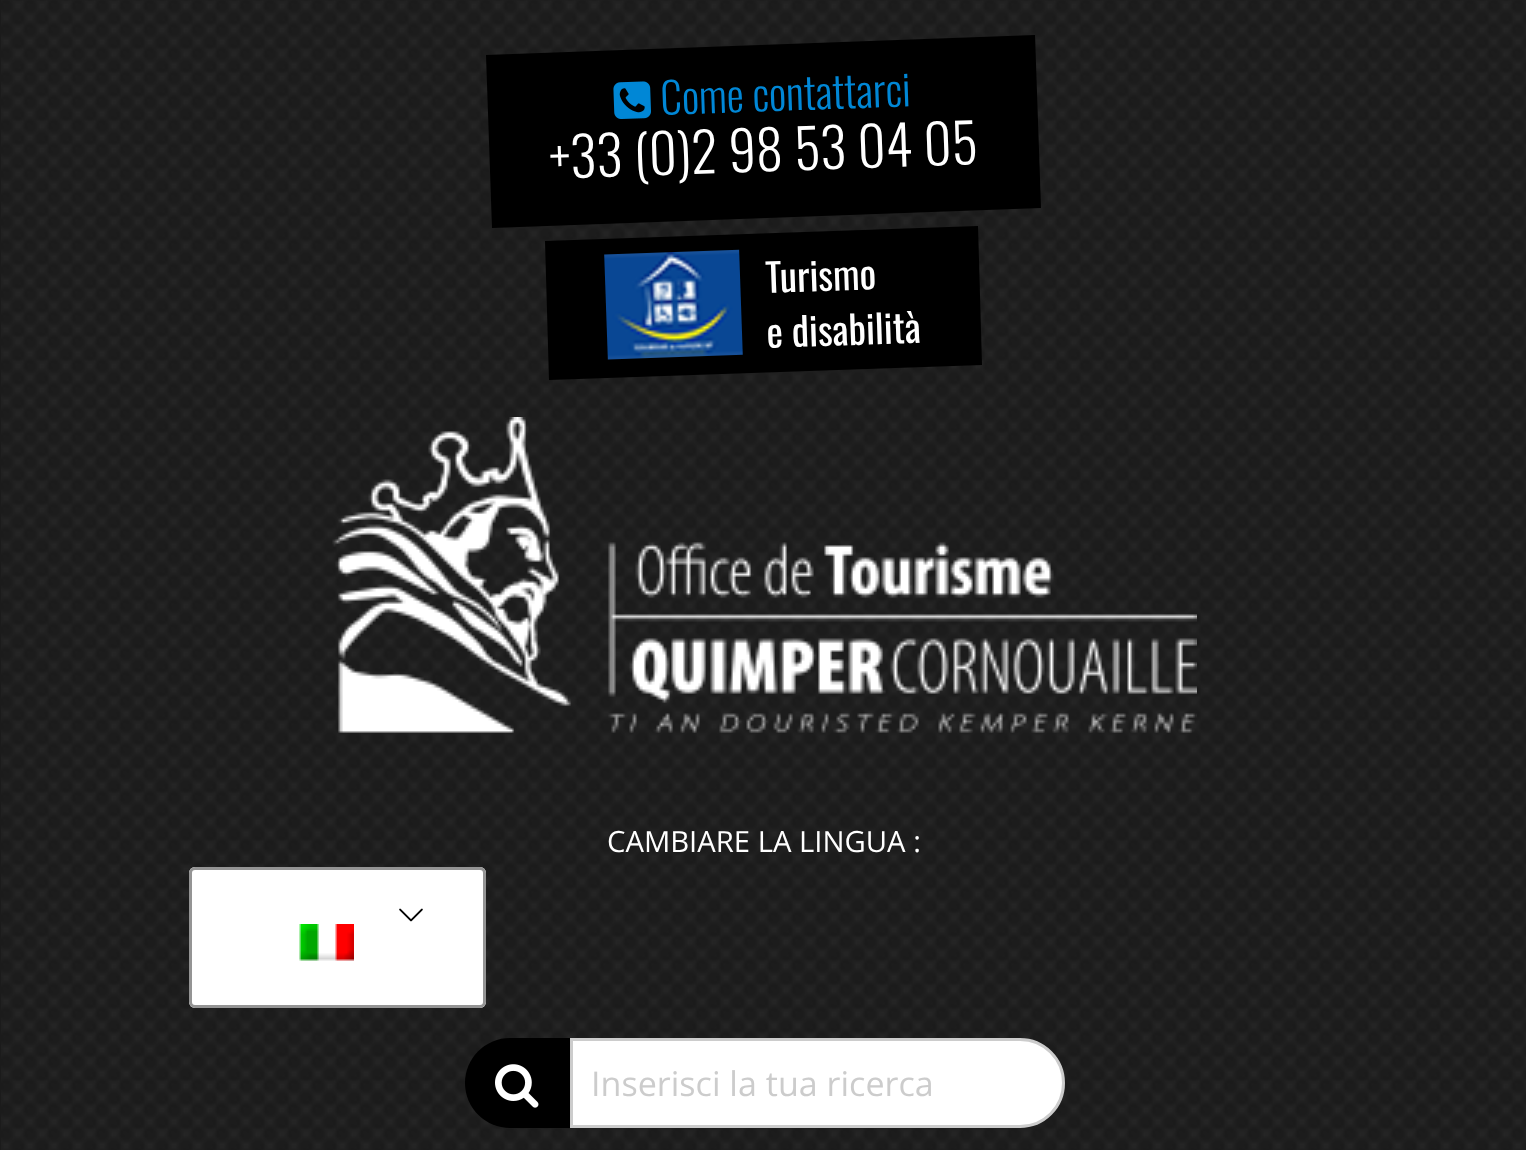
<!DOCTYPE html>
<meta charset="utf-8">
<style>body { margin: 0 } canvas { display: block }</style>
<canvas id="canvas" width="1526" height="1150"></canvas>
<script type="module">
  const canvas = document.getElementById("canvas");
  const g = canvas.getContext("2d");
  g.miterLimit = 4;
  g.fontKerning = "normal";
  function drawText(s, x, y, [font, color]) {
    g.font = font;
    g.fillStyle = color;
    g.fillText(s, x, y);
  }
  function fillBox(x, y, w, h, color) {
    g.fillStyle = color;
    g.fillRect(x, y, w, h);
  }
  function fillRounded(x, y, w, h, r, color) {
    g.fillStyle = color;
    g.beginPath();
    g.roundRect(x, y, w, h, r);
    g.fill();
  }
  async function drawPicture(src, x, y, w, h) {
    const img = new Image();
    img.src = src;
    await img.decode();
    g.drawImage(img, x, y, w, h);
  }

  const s1 = ["29.25px Open Sans", "#FFFFFF"];
  const s2 = ["34.1px Open Sans", "#CCCCCC"];

  fillBox(0, 0, 1526, 1150, "#1B1B1B");
  await drawPicture("pic1.png", 1, 0, 1525, 1150);
  g.fillStyle = "#000000";
  g.beginPath();
  g.moveTo(486, 55);
  g.lineTo(1035, 35);
  g.lineTo(1041, 208);
  g.lineTo(492, 228);
  g.closePath();
  g.fill();
  await drawPicture("pic2.png", 613, 81, 38, 38);
  g.font = "300 43px Oswald";
  g.fillStyle = "#0087D6";
  g.save();
  g.translate(661, 115);
  g.rotate(-2 * Math.PI / 180);
  g.fillText("Come contattarci", 0, 0);
  g.restore();
  g.font = "300 54.5px Oswald";
  g.fillStyle = "#FFFFFF";
  g.save();
  g.translate(550, 179);
  g.rotate(-2 * Math.PI / 180);
  g.fillText("+33 (0)2 98 53 04 05", 0, 0);
  g.restore();
  g.fillStyle = "#000000";
  g.beginPath();
  g.moveTo(545, 241);
  g.lineTo(978, 226);
  g.lineTo(982, 365);
  g.lineTo(549, 380);
  g.closePath();
  g.fill();
  await drawPicture("pic3.png", 604, 249, 139, 111);
  g.font = "39px Oswald";
  g.fillStyle = "#FFFFFF";
  g.save();
  g.translate(766, 293);
  g.rotate(-2 * Math.PI / 180);
  g.fillText("Turismo", 0, 0);
  g.restore();
  g.save();
  g.translate(767, 348);
  g.rotate(-2 * Math.PI / 180);
  g.fillText("e disabilità", 0, 0);
  g.restore();
  await drawPicture("pic4.png", 332, 417, 865, 316);
  drawText("CAMBIARE LA LINGUA :", 607, 852, s1);
  fillRounded(189, 867, 297, 141, 6, "#FFFFFF");
  await drawPicture("pic5.png", 399, 908, 24, 14);
  g.beginPath();
  g.roundRect(190.5, 868.5, 294, 138, 4.5);
  g.strokeStyle = "#949494";
  g.lineWidth = 3;
  g.stroke();
  await drawPicture("pic6.png", 299, 924, 55, 37);
  g.fillStyle = "#000000";
  g.beginPath();
  g.roundRect(465, 1038, 105, 90, [45, 0, 0, 45]);
  g.fill();
  await drawPicture("pic7.png", 495, 1064, 44, 44);
  g.fillStyle = "#FFFFFF";
  g.beginPath();
  g.roundRect(571.5, 1039.5, 492, 87, [0, 43.5, 43.5, 0]);
  g.fill();
  g.strokeStyle = "#CCCCCC";
  g.stroke();
  drawText("Inserisci la tua ricerca", 591, 1096, s2);
</script>
